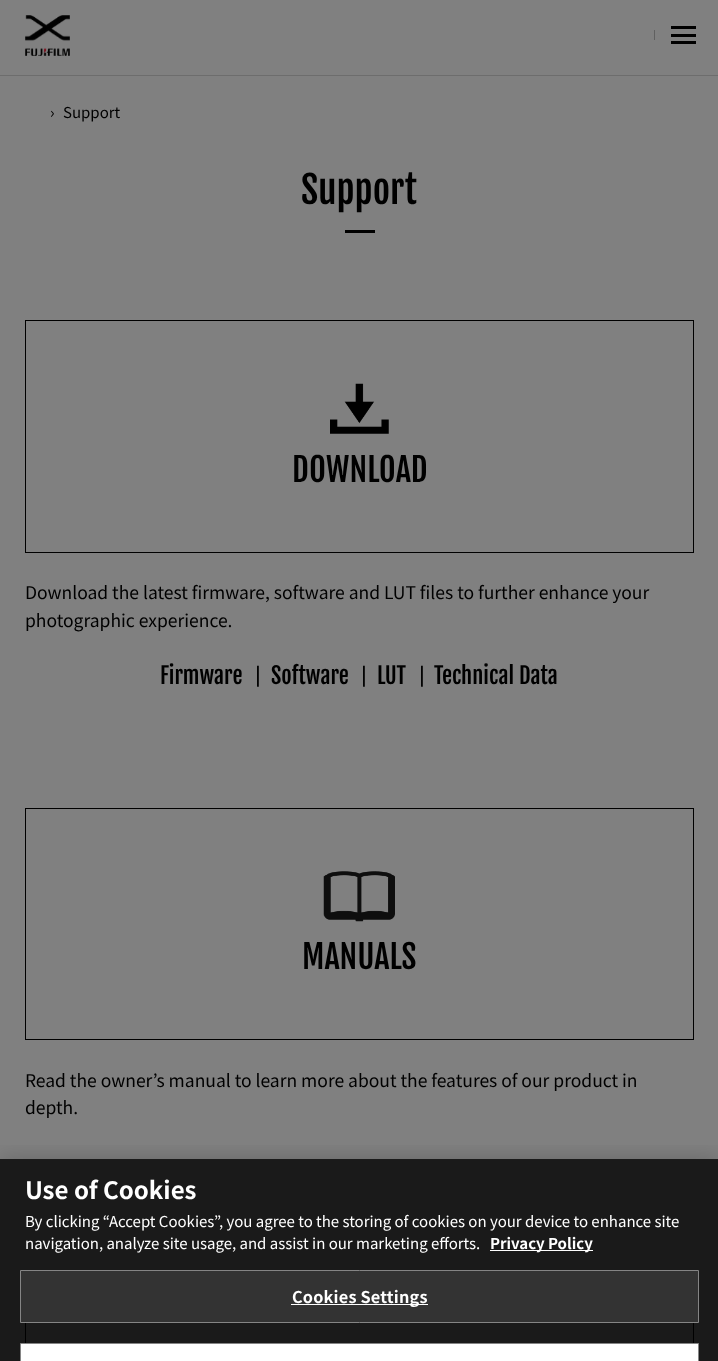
<!DOCTYPE html>
<meta charset="utf-8">
<style>body { margin: 0 } canvas { display: block }</style>
<canvas id="canvas" width="718" height="1361"></canvas>
<script type="module">
  const canvas = document.getElementById("canvas");
  const g = canvas.getContext("2d");
  g.miterLimit = 4;
  g.fontKerning = "normal";
  function drawText(s, x, y, [font, color]) {
    g.font = font;
    g.fillStyle = color;
    g.fillText(s, x, y);
  }
  function fillBox(x, y, w, h, color) {
    g.fillStyle = color;
    g.fillRect(x, y, w, h);
  }
  async function drawPicture(src, x, y, w, h) {
    const img = new Image();
    img.src = src;
    await img.decode();
    g.drawImage(img, x, y, w, h);
  }

  const s1 = ["15px Noto Sans JP", "#000000"];
  const s2 = ["37.5px Fjalla One", "#000000"];
  const s3 = ["32.5px Fjalla One", "#000000"];
  const s4 = ["17.5px Noto Sans JP", "#000000"];
  const s5 = ["22.5px Fjalla One", "#000000"];
  const s6 = ["22.5px Liberation Sans", "#000000"];
  const s7 = ["bold 24px Noto Sans JP", "#FFFFFF"];
  const s8 = ["15px Noto Sans JP", "#FFFFFF"];
  const s9 = ["bold 15px Noto Sans JP", "#FFFFFF"];
  const s10 = ["bold 16.25px Noto Sans JP", "#FFFFFF"];

  fillBox(0, 0, 718, 1361, "#808080");
  fillBox(0, 75, 718, 1, "#6D6D6D");
  await drawPicture("pic1.png", 25, 15, 45, 41);
  fillBox(671, 26, 25, 3, "#000000");
  fillBox(654, 30, 1, 10, "#606060");
  fillBox(671, 34, 25, 3, "#000000");
  fillBox(671, 41, 25, 3, "#000000");
  drawText("›", 50, 118, s1);
  drawText("Support", 63, 118, s1);
  drawText("Support", 301, 204, s2);
  fillBox(345, 230, 30, 3, "#000000");
  g.strokeStyle = "#000000";
  g.strokeRect(25.5, 320.5, 668, 232);
  await drawPicture("pic2.png", 330, 383, 59, 51);
  drawText("DOWNLOAD", 292, 482, s3);
  drawText("Download the latest firmware, software and LUT files to further enhance your", 25, 599, s4);
  drawText("photographic experience.", 25, 627, s4);
  drawText("Firmware", 160, 684, s5);
  drawText("|", 255, 682, s6);
  drawText("Software", 271, 684, s5);
  drawText("|", 361, 682, s6);
  drawText("LUT", 377, 684, s5);
  drawText("|", 419, 682, s6);
  drawText("Technical Data", 434, 684, s5);
  g.strokeRect(25.5, 808.5, 668, 231);
  await drawPicture("pic3.png", 323, 871, 72, 51);
  drawText("MANUALS", 302, 969, s3);
  drawText("Read the owner’s manual to learn more about the features of our product in", 25, 1087, s4);
  drawText("depth.", 25, 1114, s4);
  g.strokeRect(25.5, 1295.5, 668, 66);
  g.save();
  g.beginPath();
  g.rect(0, 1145, 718, 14);
  g.clip();
  g.fillStyle = "rgba(0, 0, 0, 0.2)";
  g.filter = "blur(11px)";
  g.beginPath();
  g.rect(0, 1159, 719, 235);
  g.fill();
  g.filter = "none";
  g.restore();
  fillBox(0, 1159, 718, 202, "rgba(0, 0, 0, 0.8)");
  drawText("Use of Cookies", 25, 1199, s7);
  drawText("By clicking “Accept Cookies”, you agree to the storing of cookies on your device to enhance site", 25, 1227, s8);
  drawText("navigation, analyze site usage, and assist in our marketing efforts.", 25, 1249, s8);
  fillBox(490, 1250, 103, 1, "#FFFFFF");
  drawText("Privacy Policy", 490, 1249, s9);
  g.fillStyle = "#333333";
  g.beginPath();
  g.rect(20.5, 1270.5, 678, 52);
  g.fill();
  g.strokeStyle = "#858585";
  g.stroke();
  fillBox(291, 1304, 137, 1, "#FFFFFF");
  g.letterSpacing = "0.2px";
  drawText("Cookies Settings", 292, 1303, s10);
  g.beginPath();
  g.rect(20.5, 1343.5, 678, 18);
  g.fill();
  g.stroke();
</script>
